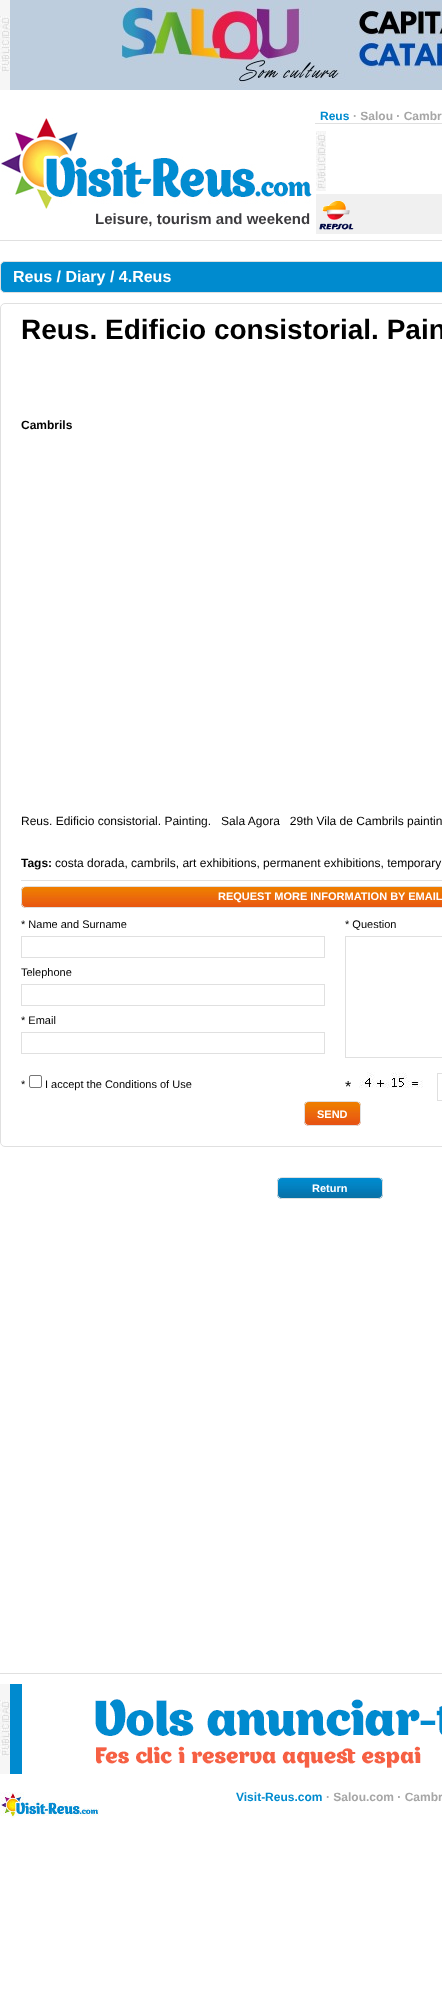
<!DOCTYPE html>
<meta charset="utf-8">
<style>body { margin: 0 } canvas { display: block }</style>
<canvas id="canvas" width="442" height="1993"></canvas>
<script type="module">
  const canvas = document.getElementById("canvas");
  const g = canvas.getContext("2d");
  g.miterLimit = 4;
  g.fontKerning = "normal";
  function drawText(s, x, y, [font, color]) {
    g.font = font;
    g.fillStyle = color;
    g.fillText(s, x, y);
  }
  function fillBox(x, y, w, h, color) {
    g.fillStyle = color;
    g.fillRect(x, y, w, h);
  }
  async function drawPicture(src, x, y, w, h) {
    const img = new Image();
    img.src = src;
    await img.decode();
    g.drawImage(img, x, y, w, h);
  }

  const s1 = ["bold 12px Liberation Sans", "#008BCF"];
  const s2 = ["bold 12px Liberation Sans", "#A6A6A6"];
  const s3 = ["bold 15px Liberation Sans", "#3D3C3F"];
  const s4 = ["bold 16px Liberation Sans", "#FFFFFF"];
  const s5 = ["bold 28px Liberation Sans", "#000000"];
  const s6 = ["bold 12px Liberation Sans", "#000000"];
  const s7 = ["12px Liberation Sans", "#000000"];
  const s8 = ["bold 11px Liberation Sans", "#FFFFFF"];
  const s9 = ["11px Liberation Sans", "#000000"];
  const s10 = ["16px Liberation Sans", "#000000"];

  fillBox(0, 0, 442, 1993, "#FFFFFF");
  fillBox(0, 240, 442, 1, "#E0E0E0");
  await drawPicture("pic1.png", 0, 0, 10, 90);
  await drawPicture("pic2.png", 10, 0, 432, 90);
  fillBox(315, 123, 127, 1, "#E0E0E0");
  drawText("Reus", 320, 120, s1);
  drawText("· Salou · Cambr", 353, 120, s2);
  await drawPicture("pic3.png", 316, 131, 10, 60);
  fillBox(316, 194, 126, 40, "#F0F0F0");
  await drawPicture("pic4.png", 319, 201, 35, 29);
  await drawPicture("pic5.png", 1, 118, 311, 92);
  drawText("Leisure, tourism and weekend", 95, 224, s3);
  g.fillStyle = "#008BCF";
  g.beginPath();
  g.roundRect(0.5, 261.5, 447, 31, 4.5);
  g.fill();
  g.strokeStyle = "#E0E0E0";
  g.stroke();
  drawText("Reus / Diary / 4.Reus", 13, 282, s4);
  g.beginPath();
  g.roundRect(0.5, 303.5, 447, 843, 4.5);
  g.stroke();
  drawText("Reus. Edificio consistorial. Pain", 21, 339, s5);
  drawText("Cambrils", 21, 429, s6);
  drawText("Reus. Edificio consistorial. Painting.   Sala Agora   29th Vila de Cambrils paintin", 21, 825, s7);
  drawText("Tags:", 21, 867, s6);
  drawText("costa dorada, cambrils, art exhibitions, permanent exhibitions, temporary", 55, 867, s7);
  fillBox(21, 880, 421, 1, "#E0E0E0");
  await drawPicture("pic6.png", 21, 887, 421, 21);
  g.beginPath();
  g.roundRect(21.5, 886.5, 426, 21, 4.5);
  g.stroke();
  drawText("REQUEST MORE INFORMATION BY EMAIL", 218, 900, s8);
  drawText("* Name and Surname", 21, 928, s9);
  drawText("* Question", 345, 928, s9);
  g.strokeRect(21.5, 936.5, 303, 21);
  g.strokeRect(345.5, 936.5, 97, 121);
  drawText("Telephone", 21, 976, s9);
  g.strokeRect(21.5, 984.5, 303, 21);
  drawText("* Email", 21, 1024, s9);
  g.strokeRect(21.5, 1032.5, 303, 21);
  drawText("*", 21, 1088, s9);
  g.beginPath();
  g.roundRect(29.5, 1075.5, 12, 12, 1.5);
  g.strokeStyle = "#767676";
  g.stroke();
  drawText("I accept the Conditions of Use", 45, 1088, s9);
  drawText("*", 345, 1092, s10);
  await drawPicture("pic7.png", 359, 1072, 64, 16);
  g.strokeStyle = "#E0E0E0";
  g.strokeRect(437.5, 1073.5, 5, 27);
  await drawPicture("pic8.png", 304, 1102, 57, 24);
  g.beginPath();
  g.roundRect(304.5, 1101.5, 56, 24, 4.5);
  g.stroke();
  drawText("SEND", 317, 1118, s8);
  await drawPicture("pic9.png", 277, 1178, 106, 21);
  g.beginPath();
  g.roundRect(277.5, 1177.5, 105, 21, 4.5);
  g.stroke();
  drawText("Return", 312, 1192, s8);
  fillBox(0, 1673, 442, 1, "#E0E0E0");
  await drawPicture("pic1.png", 0, 1684, 10, 90);
  await drawPicture("pic10.png", 10, 1684, 432, 90);
  await drawPicture("pic11.png", 0, 1792, 99, 26);
  drawText("Visit-Reus.com", 236, 1801, s1);
  drawText("· Salou.com · Cambr", 326, 1801, s2);
</script>
